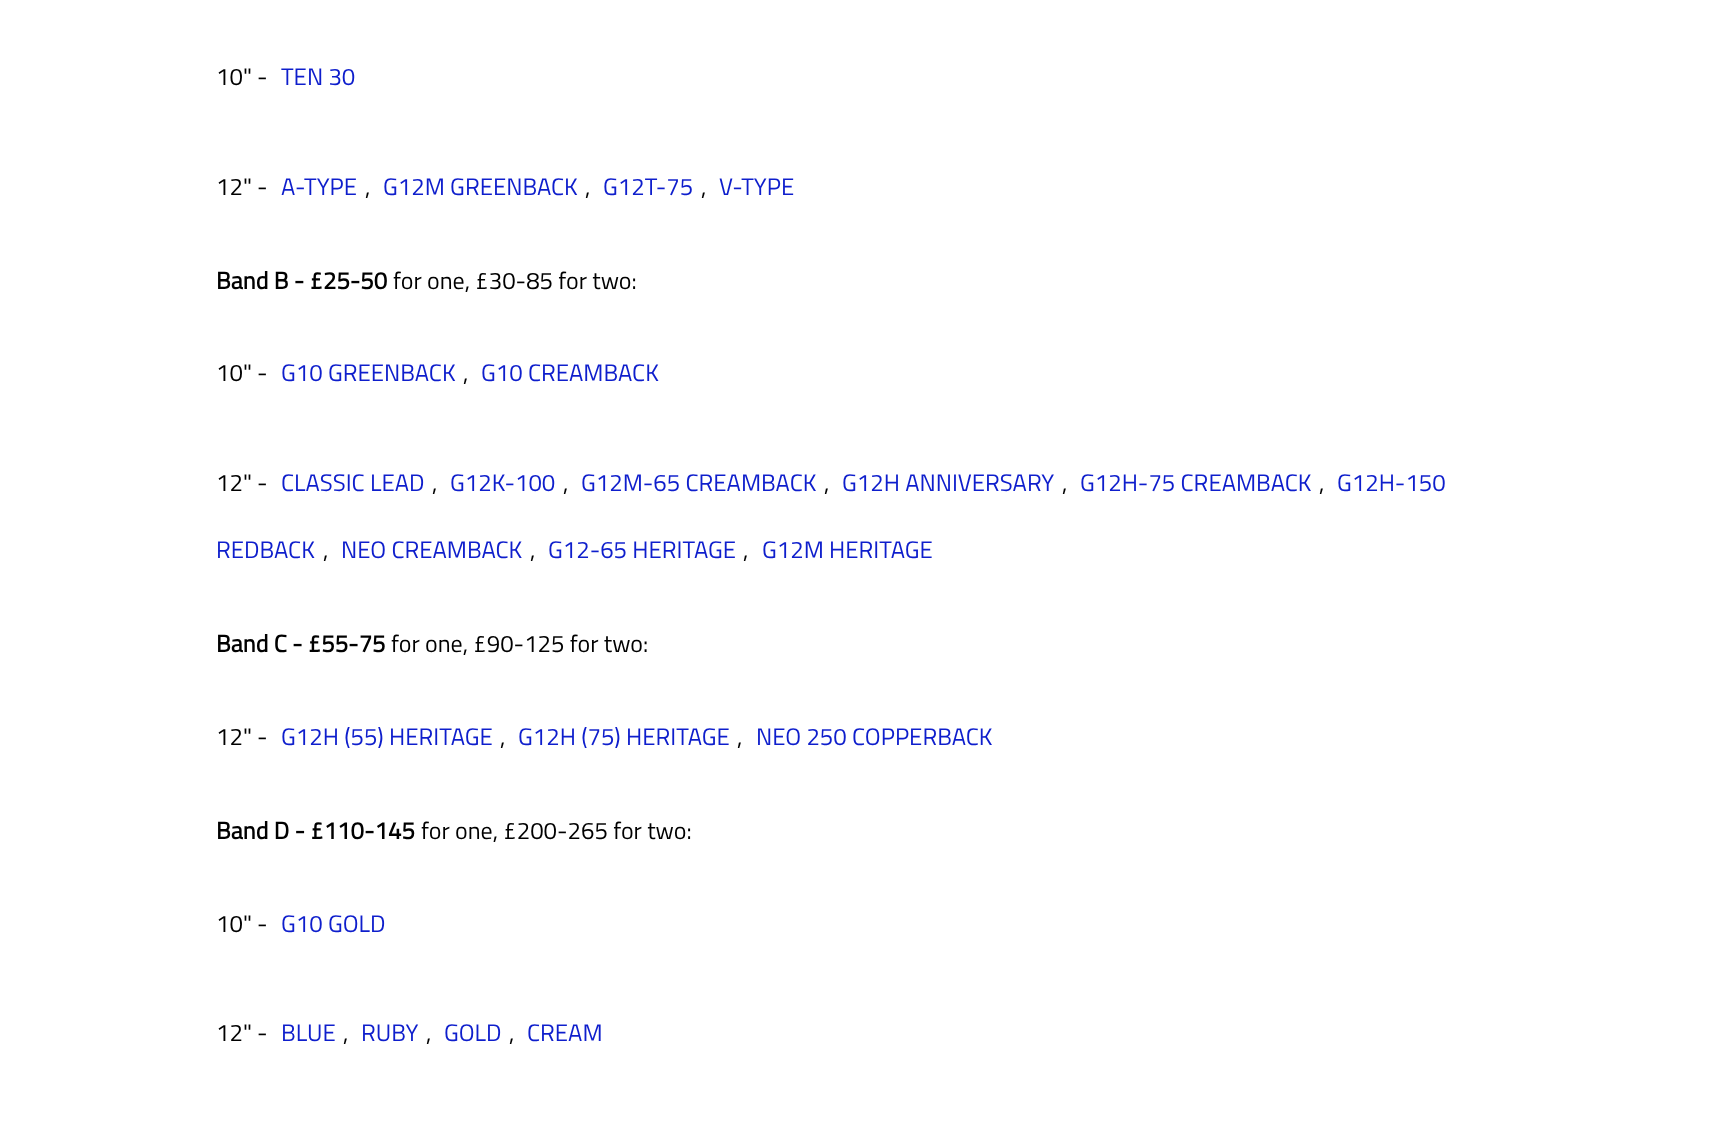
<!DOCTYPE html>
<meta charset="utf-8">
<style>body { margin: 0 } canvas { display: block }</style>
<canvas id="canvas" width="1728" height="1128"></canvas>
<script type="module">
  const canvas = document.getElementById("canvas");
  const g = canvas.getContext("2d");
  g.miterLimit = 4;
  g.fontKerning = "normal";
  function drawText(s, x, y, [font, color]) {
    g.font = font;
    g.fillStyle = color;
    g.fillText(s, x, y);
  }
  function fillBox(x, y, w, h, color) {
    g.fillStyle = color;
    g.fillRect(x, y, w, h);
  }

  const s1 = ["24px Titillium Web", "#000000"];
  const s2 = ["24px Titillium Web", "#0E1ECC"];
  const s3 = ["bold 24px Titillium Web", "#000000"];

  fillBox(0, 0, 1728, 1128, "#FFFFFF");
  drawText("10\" -", 216, 85, s1);
  drawText("TEN 30", 281, 85, s2);
  drawText("12\" -", 216, 195, s1);
  drawText("A-TYPE", 281, 195, s2);
  drawText(",", 365, 195, s1);
  drawText("G12M GREENBACK", 383, 195, s2);
  drawText(",", 585, 195, s1);
  drawText("G12T-75", 603, 195, s2);
  drawText(",", 701, 195, s1);
  drawText("V-TYPE", 719, 195, s2);
  drawText("Band B - £25-50", 216, 289, s3);
  drawText("for one, £30-85 for two:", 393, 289, s1);
  drawText("10\" -", 216, 381, s1);
  drawText("G10 GREENBACK", 281, 381, s2);
  drawText(",", 463, 381, s1);
  drawText("G10 CREAMBACK", 481, 381, s2);
  drawText("12\" -", 216, 491, s1);
  drawText("CLASSIC LEAD", 281, 491, s2);
  drawText(",", 432, 491, s1);
  drawText("G12K-100", 450, 491, s2);
  drawText(",", 563, 491, s1);
  drawText("G12M-65 CREAMBACK", 581, 491, s2);
  drawText(",", 824, 491, s1);
  drawText("G12H ANNIVERSARY", 842, 491, s2);
  drawText(",", 1062, 491, s1);
  drawText("G12H-75 CREAMBACK", 1080, 491, s2);
  drawText(",", 1319, 491, s1);
  drawText("G12H-150", 1337, 491, s2);
  drawText("REDBACK", 216, 558, s2);
  drawText(",", 323, 558, s1);
  drawText("NEO CREAMBACK", 341, 558, s2);
  drawText(",", 530, 558, s1);
  drawText("G12-65 HERITAGE", 548, 558, s2);
  drawText(",", 743, 558, s1);
  drawText("G12M HERITAGE", 762, 558, s2);
  drawText("Band C - £55-75", 216, 652, s3);
  drawText("for one, £90-125 for two:", 391, 652, s1);
  drawText("12\" -", 216, 745, s1);
  drawText("G12H (55) HERITAGE", 281, 745, s2);
  drawText(",", 500, 745, s1);
  drawText("G12H (75) HERITAGE", 518, 745, s2);
  drawText(",", 737, 745, s1);
  drawText("NEO 250 COPPERBACK", 756, 745, s2);
  drawText("Band D - £110-145", 216, 839, s3);
  drawText("for one, £200-265 for two:", 421, 839, s1);
  drawText("10\" -", 216, 932, s1);
  drawText("G10 GOLD", 281, 932, s2);
  drawText("12\" -", 216, 1041, s1);
  drawText("BLUE", 281, 1041, s2);
  drawText(",", 343, 1041, s1);
  drawText("RUBY", 361, 1041, s2);
  drawText(",", 426, 1041, s1);
  drawText("GOLD", 444, 1041, s2);
  drawText(",", 509, 1041, s1);
  drawText("CREAM", 527, 1041, s2);
</script>
